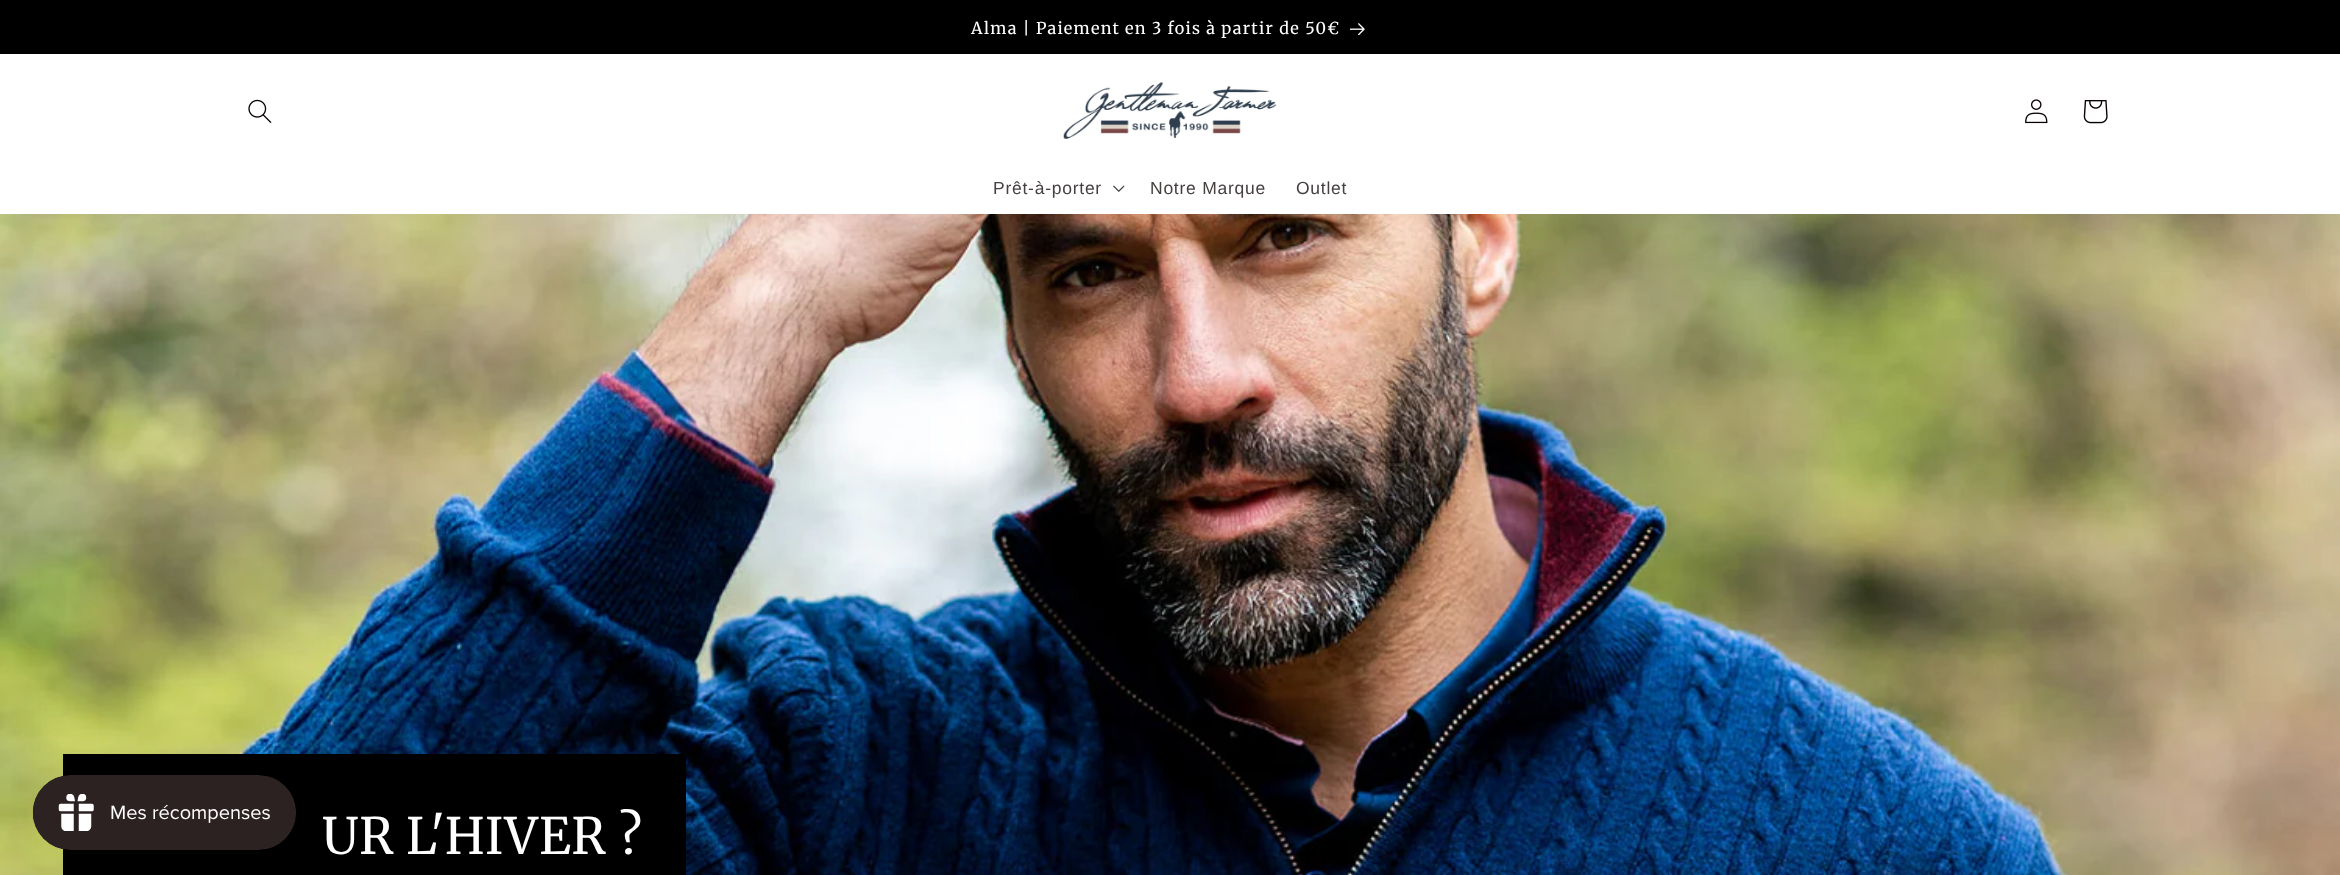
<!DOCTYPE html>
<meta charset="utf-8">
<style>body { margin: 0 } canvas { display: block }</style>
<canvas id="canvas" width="2340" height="875"></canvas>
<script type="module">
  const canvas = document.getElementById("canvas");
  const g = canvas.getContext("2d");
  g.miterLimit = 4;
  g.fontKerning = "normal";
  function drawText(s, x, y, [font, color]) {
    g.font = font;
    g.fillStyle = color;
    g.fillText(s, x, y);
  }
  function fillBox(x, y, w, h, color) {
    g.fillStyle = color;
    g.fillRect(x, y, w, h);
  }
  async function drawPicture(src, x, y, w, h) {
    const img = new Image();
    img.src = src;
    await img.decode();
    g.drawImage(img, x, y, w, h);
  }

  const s1 = ["16.25px 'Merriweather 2'", "#FFFFFF"];
  const s2 = ["17.5px Liberation Sans", "#464040"];
  const s3 = ["50px Merriweather", "#FFFFFF"];

  fillBox(0, 0, 2340, 875, "#FFFFFF");
  fillBox(0, 0, 2340, 54, "#000000");
  g.letterSpacing = "1.25px";
  drawText("Alma | Paiement en 3 fois à partir de 50€", 971, 34, s1);
  await drawPicture("pic1.png", 1350, 23, 15, 12);
  await drawPicture("pic2.png", 248, 99, 24, 24);
  await drawPicture("pic3.png", 1063, 82, 214, 57);
  await drawPicture("pic4.png", 2025, 99, 23, 25);
  await drawPicture("pic5.png", 2083, 100, 25, 24);
  g.letterSpacing = "0.75px";
  drawText("Prêt-à-porter", 993, 194, s2);
  await drawPicture("pic6.png", 1113, 185, 12, 7);
  drawText("Notre Marque", 1150, 194, s2);
  drawText("Outlet", 1296, 194, s2);
  await drawPicture("pic8.png", 0, 214, 2340, 661);
  fillBox(63, 754, 623, 121, "#000000");
  await drawPicture("pic7.png", 32, 775, 264, 75);
  drawText("UR L'HIVER ?", 322, 854, s3);
</script>
